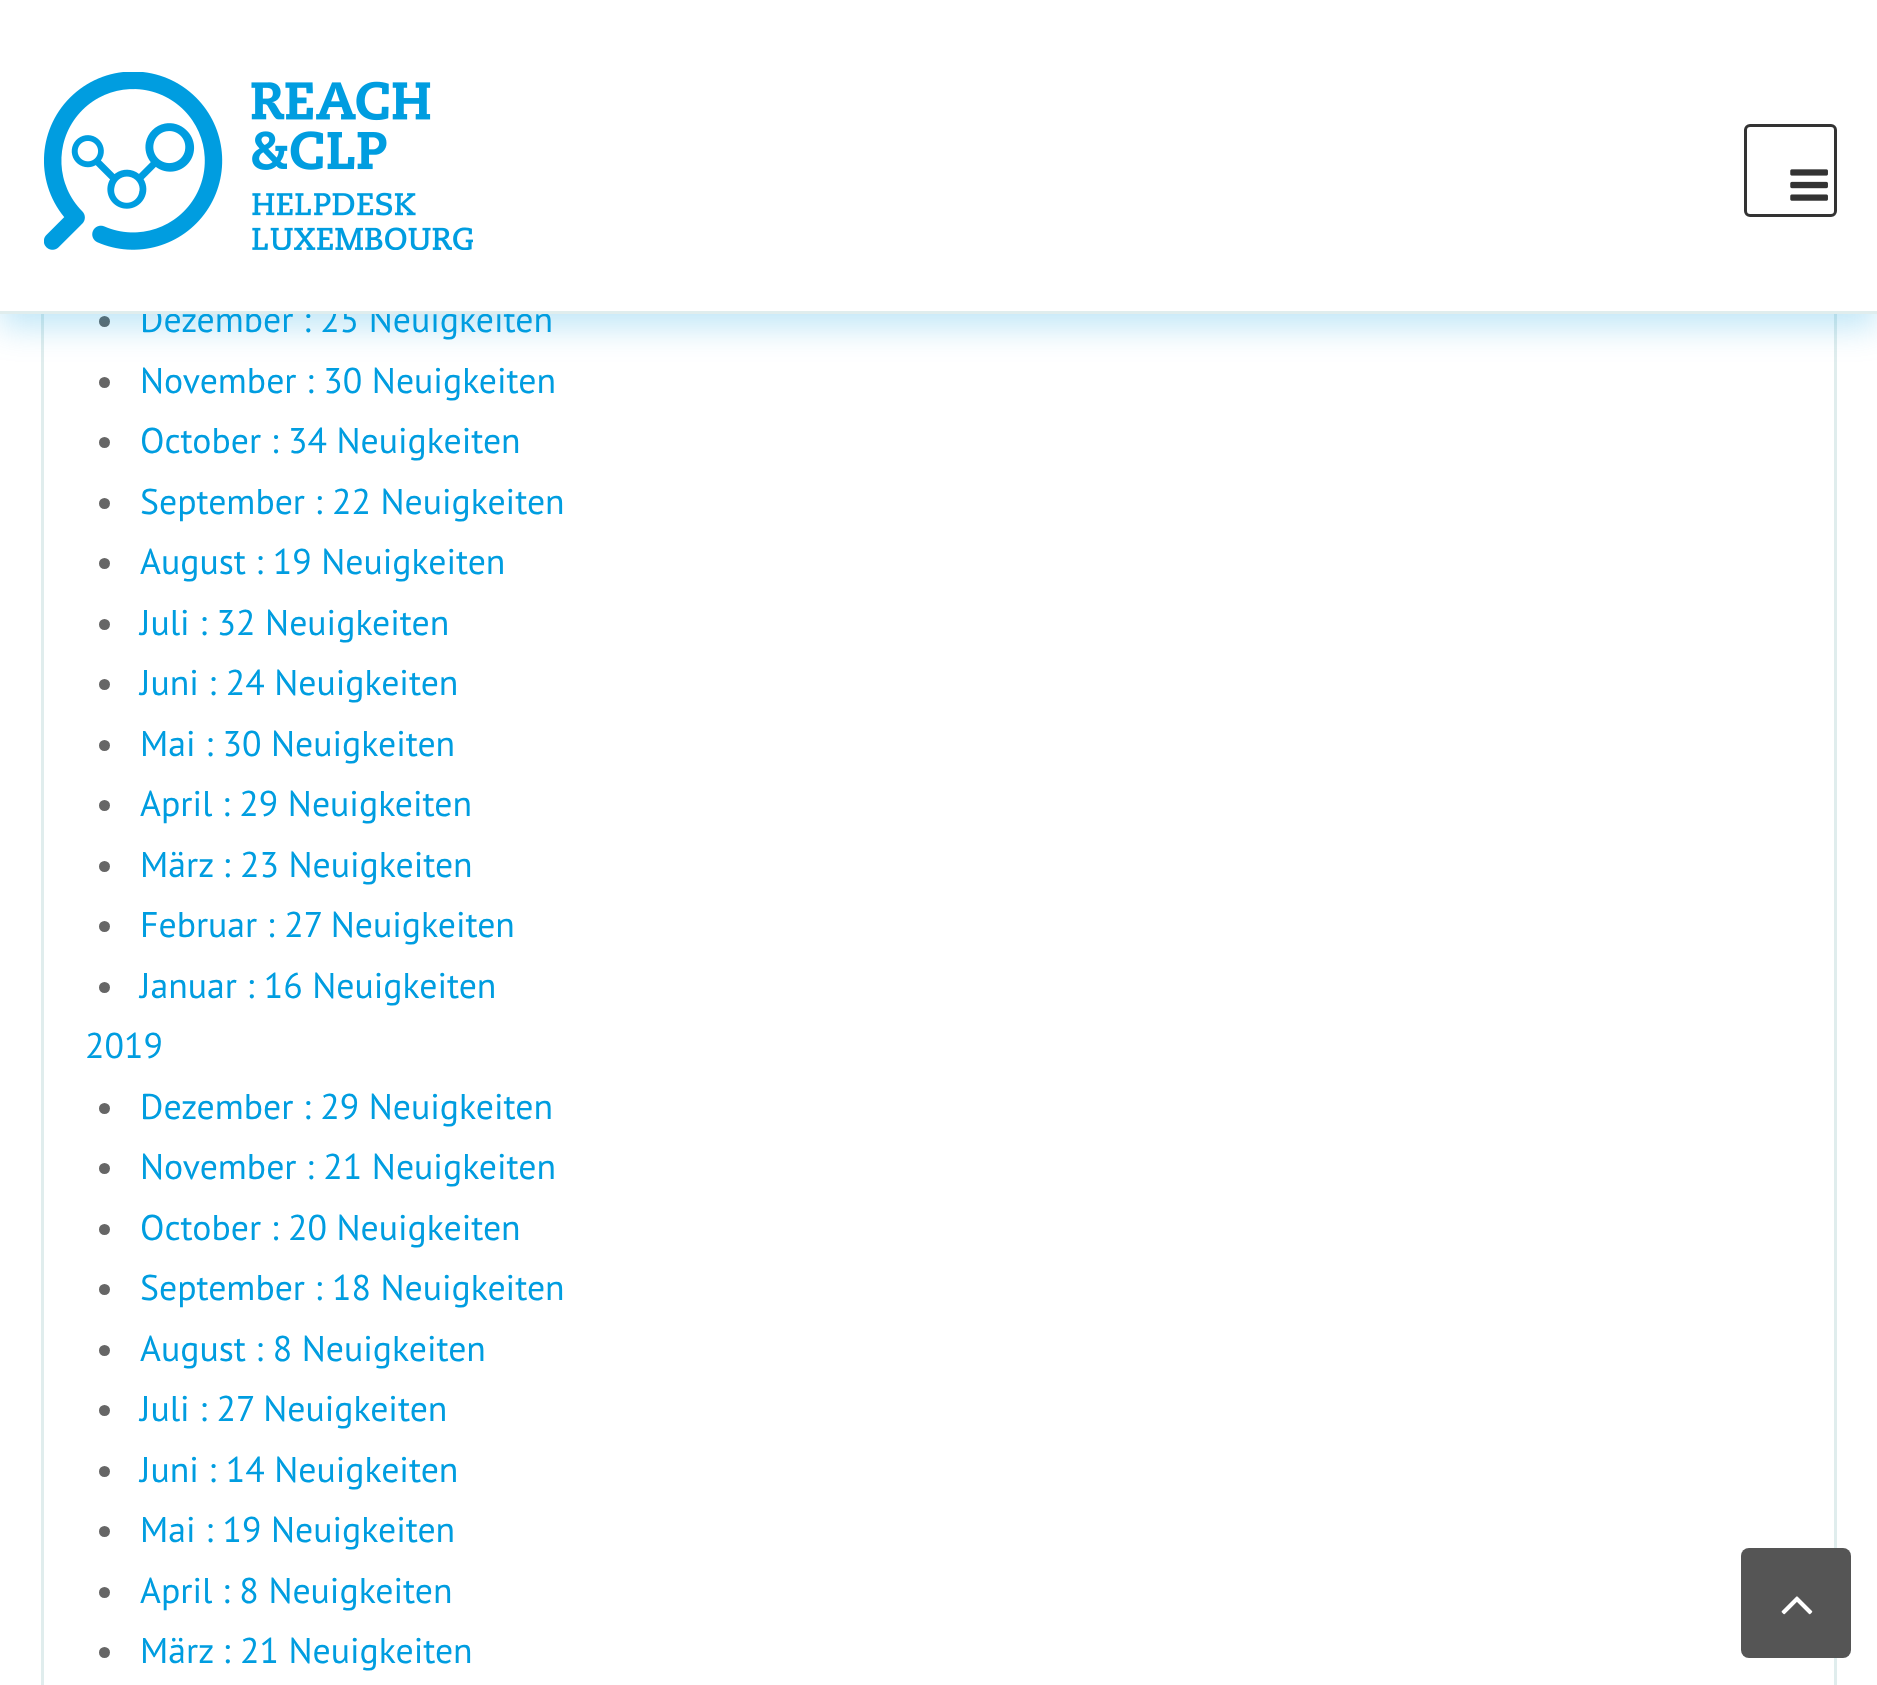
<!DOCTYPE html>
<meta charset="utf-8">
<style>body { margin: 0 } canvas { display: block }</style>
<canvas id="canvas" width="1877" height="1685"></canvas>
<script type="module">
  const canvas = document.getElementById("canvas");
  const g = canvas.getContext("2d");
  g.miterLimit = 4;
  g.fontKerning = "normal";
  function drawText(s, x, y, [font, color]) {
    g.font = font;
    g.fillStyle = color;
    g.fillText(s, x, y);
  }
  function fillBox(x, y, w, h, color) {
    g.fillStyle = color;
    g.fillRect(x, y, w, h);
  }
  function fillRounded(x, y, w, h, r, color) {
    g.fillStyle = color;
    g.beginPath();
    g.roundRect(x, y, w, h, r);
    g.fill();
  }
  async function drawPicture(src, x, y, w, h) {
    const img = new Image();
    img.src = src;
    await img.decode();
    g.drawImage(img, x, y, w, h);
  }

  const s1 = ["35.75px PT Sans", "#009DE0"];

  fillBox(0, 0, 1877, 1685, "#FFFFFF");
  g.strokeStyle = "#E0EDED";
  g.lineWidth = 3;
  g.strokeRect(42.5, -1.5, 1793, 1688);
  g.fillStyle = "#666666";
  g.beginPath();
  g.arc(104.5, 321.5, 5.5, 0, Math.PI * 2);
  g.fill();
  g.beginPath();
  g.arc(104.5, 382.5, 5.5, 0, Math.PI * 2);
  g.fill();
  g.fillStyle = "rgba(0, 157, 224, 0.25)";
  g.filter = "blur(16.5px)";
  g.beginPath();
  g.rect(0, 14, 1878, 313);
  g.fill();
  g.filter = "none";
  drawText("Dezember : 25 Neuigkeiten", 140, 332, s1);
  fillBox(0, 0, 1877, 311, "#FFFFFF");
  fillBox(0, 311, 1877, 3, "#E0EDED");
  await drawPicture("pic1.png", 44, 72, 429, 178);
  g.beginPath();
  g.roundRect(1745.5, 125.5, 90, 90, 4.5);
  g.strokeStyle = "#333333";
  g.stroke();
  await drawPicture("pic2.png", 1790, 169, 38, 32);
  drawText("November : 30 Neuigkeiten", 140, 393, s1);
  g.fillStyle = "#666666";
  g.beginPath();
  g.arc(104.5, 442.5, 5.5, 0, Math.PI * 2);
  g.fill();
  drawText("October : 34 Neuigkeiten", 140, 453, s1);
  g.fillStyle = "#666666";
  g.beginPath();
  g.arc(104.5, 503.5, 5.5, 0, Math.PI * 2);
  g.fill();
  drawText("September : 22 Neuigkeiten", 140, 514, s1);
  g.fillStyle = "#666666";
  g.beginPath();
  g.arc(104.5, 563.5, 5.5, 0, Math.PI * 2);
  g.fill();
  drawText("August : 19 Neuigkeiten", 140, 574, s1);
  g.fillStyle = "#666666";
  g.beginPath();
  g.arc(104.5, 624.5, 5.5, 0, Math.PI * 2);
  g.fill();
  drawText("Juli : 32 Neuigkeiten", 140, 635, s1);
  g.fillStyle = "#666666";
  g.beginPath();
  g.arc(104.5, 684.5, 5.5, 0, Math.PI * 2);
  g.fill();
  drawText("Juni : 24 Neuigkeiten", 140, 695, s1);
  g.fillStyle = "#666666";
  g.beginPath();
  g.arc(104.5, 745.5, 5.5, 0, Math.PI * 2);
  g.fill();
  drawText("Mai : 30 Neuigkeiten", 140, 756, s1);
  g.fillStyle = "#666666";
  g.beginPath();
  g.arc(104.5, 805.5, 5.5, 0, Math.PI * 2);
  g.fill();
  drawText("April : 29 Neuigkeiten", 140, 816, s1);
  g.fillStyle = "#666666";
  g.beginPath();
  g.arc(104.5, 866.5, 5.5, 0, Math.PI * 2);
  g.fill();
  drawText("März : 23 Neuigkeiten", 140, 877, s1);
  g.fillStyle = "#666666";
  g.beginPath();
  g.arc(104.5, 926.5, 5.5, 0, Math.PI * 2);
  g.fill();
  drawText("Februar : 27 Neuigkeiten", 140, 937, s1);
  g.fillStyle = "#666666";
  g.beginPath();
  g.arc(104.5, 987.5, 5.5, 0, Math.PI * 2);
  g.fill();
  drawText("Januar : 16 Neuigkeiten", 140, 998, s1);
  drawText("2019", 85, 1058, s1);
  g.fillStyle = "#666666";
  g.beginPath();
  g.arc(104.5, 1108.5, 5.5, 0, Math.PI * 2);
  g.fill();
  drawText("Dezember : 29 Neuigkeiten", 140, 1119, s1);
  g.fillStyle = "#666666";
  g.beginPath();
  g.arc(104.5, 1168.5, 5.5, 0, Math.PI * 2);
  g.fill();
  drawText("November : 21 Neuigkeiten", 140, 1179, s1);
  g.fillStyle = "#666666";
  g.beginPath();
  g.arc(104.5, 1229.5, 5.5, 0, Math.PI * 2);
  g.fill();
  drawText("October : 20 Neuigkeiten", 140, 1240, s1);
  g.fillStyle = "#666666";
  g.beginPath();
  g.arc(104.5, 1289.5, 5.5, 0, Math.PI * 2);
  g.fill();
  drawText("September : 18 Neuigkeiten", 140, 1300, s1);
  g.fillStyle = "#666666";
  g.beginPath();
  g.arc(104.5, 1350.5, 5.5, 0, Math.PI * 2);
  g.fill();
  drawText("August : 8 Neuigkeiten", 140, 1361, s1);
  g.fillStyle = "#666666";
  g.beginPath();
  g.arc(104.5, 1410.5, 5.5, 0, Math.PI * 2);
  g.fill();
  drawText("Juli : 27 Neuigkeiten", 140, 1421, s1);
  g.fillStyle = "#666666";
  g.beginPath();
  g.arc(104.5, 1471.5, 5.5, 0, Math.PI * 2);
  g.fill();
  drawText("Juni : 14 Neuigkeiten", 140, 1482, s1);
  g.fillStyle = "#666666";
  g.beginPath();
  g.arc(104.5, 1531.5, 5.5, 0, Math.PI * 2);
  g.fill();
  drawText("Mai : 19 Neuigkeiten", 140, 1542, s1);
  g.fillStyle = "#666666";
  g.beginPath();
  g.arc(104.5, 1592.5, 5.5, 0, Math.PI * 2);
  g.fill();
  drawText("April : 8 Neuigkeiten", 140, 1603, s1);
  g.fillStyle = "#666666";
  g.beginPath();
  g.arc(104.5, 1652.5, 5.5, 0, Math.PI * 2);
  g.fill();
  drawText("März : 21 Neuigkeiten", 140, 1663, s1);
  fillRounded(1741, 1548, 110, 110, 8, "#555555");
  await drawPicture("pic3.png", 1781, 1596, 32, 19);
</script>
